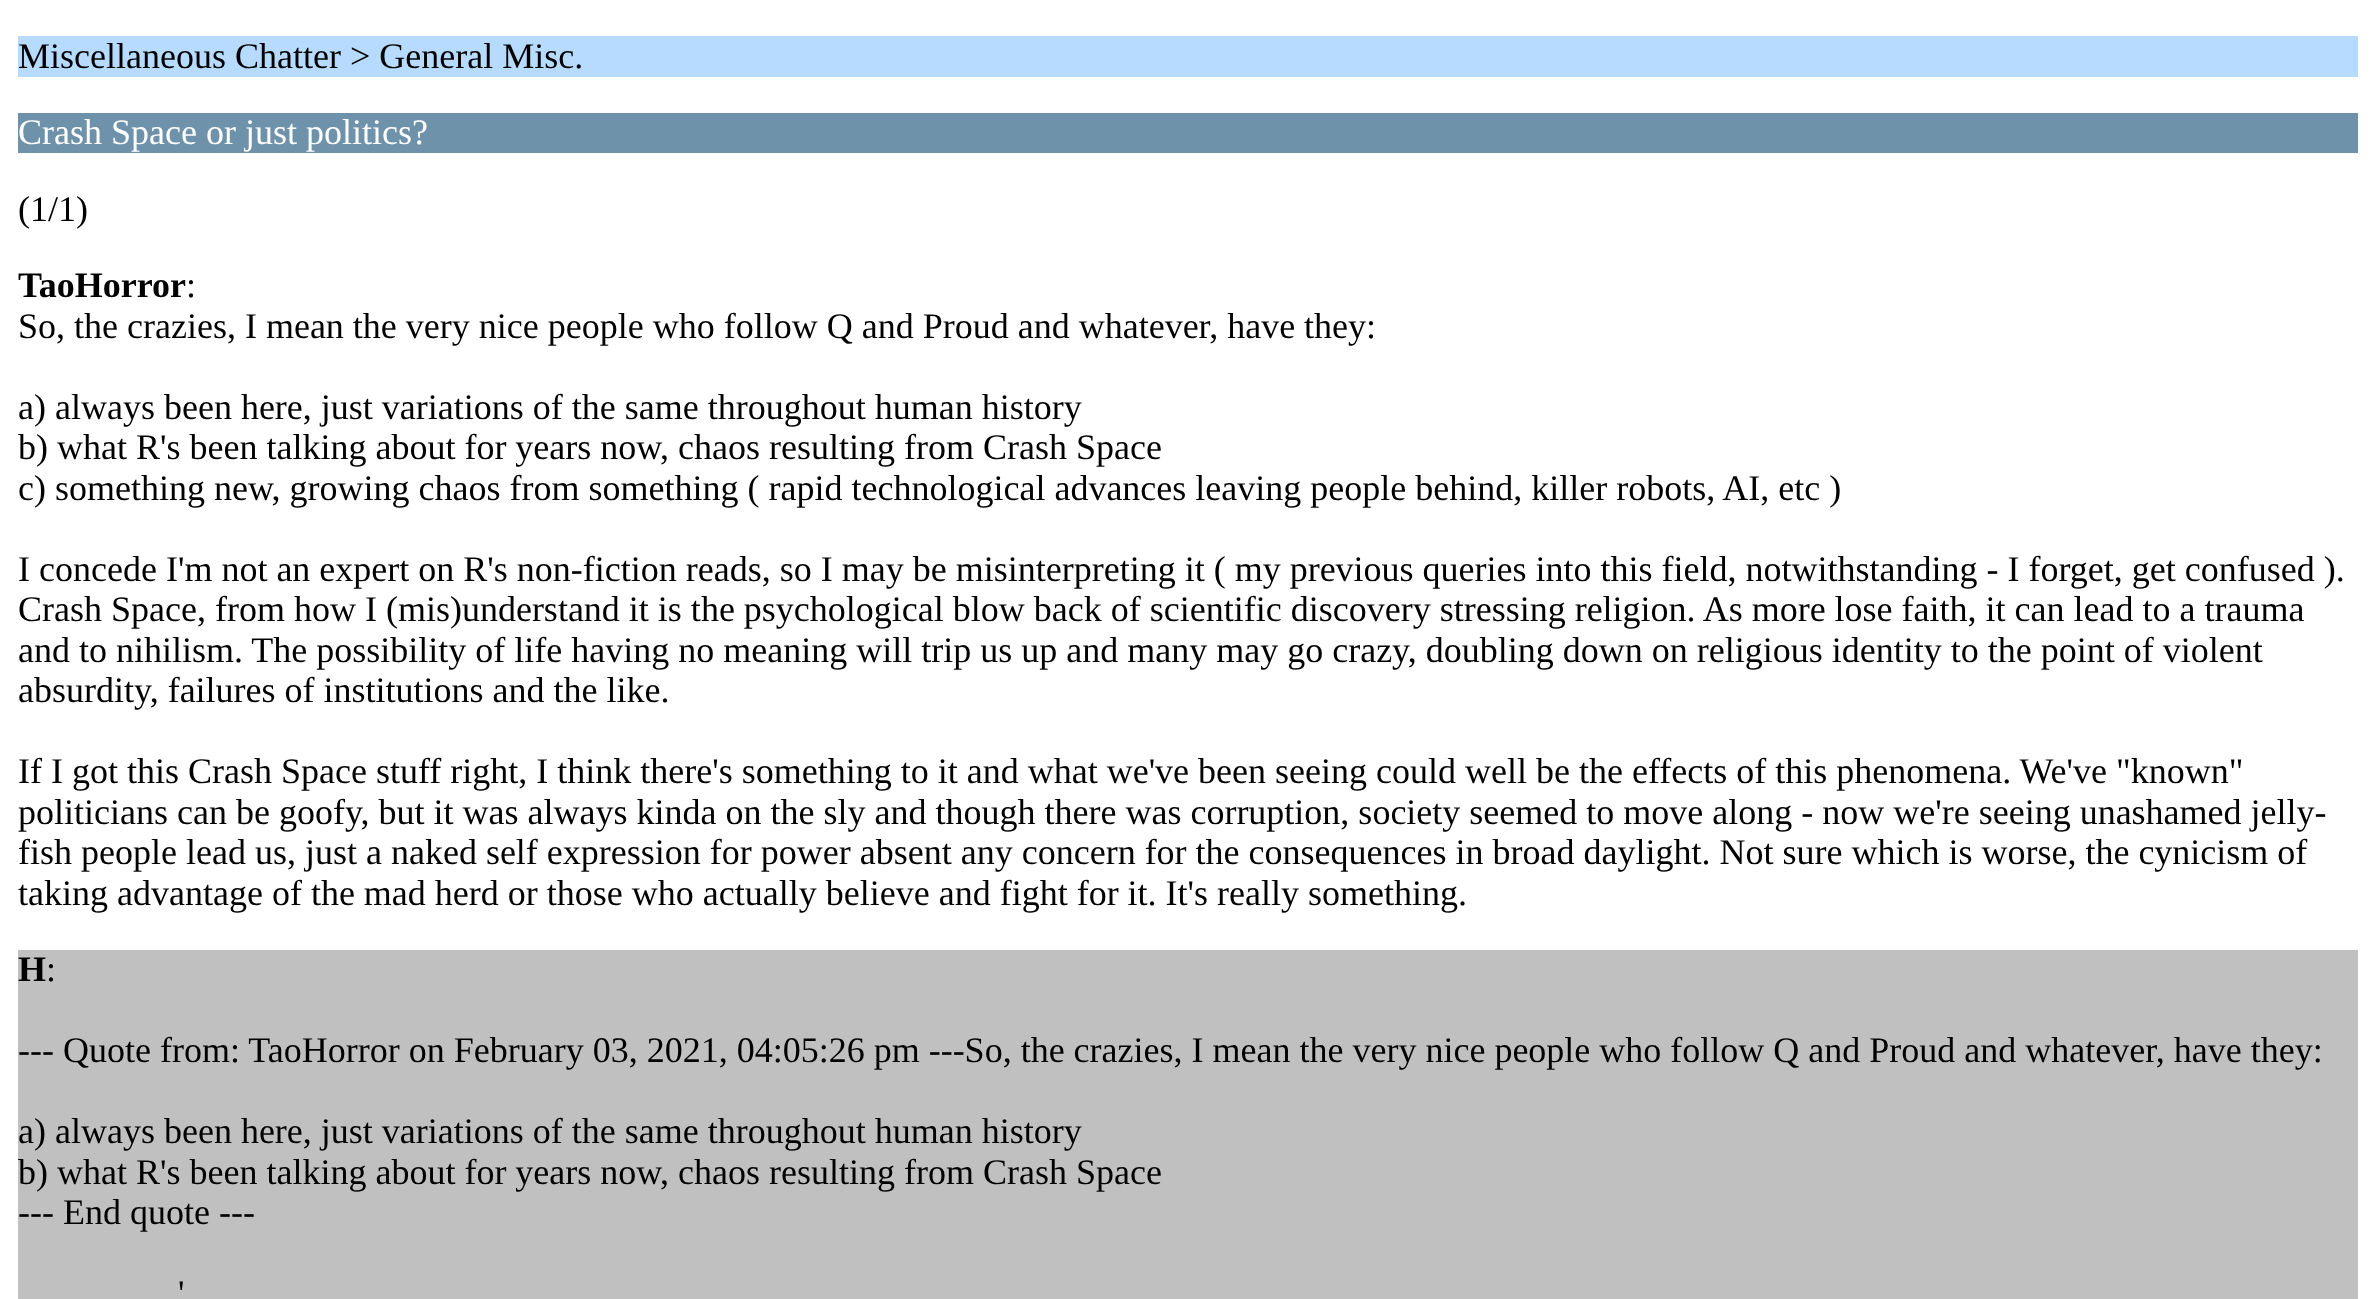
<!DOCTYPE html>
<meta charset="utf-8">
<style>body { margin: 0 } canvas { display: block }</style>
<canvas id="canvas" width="2376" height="1299"></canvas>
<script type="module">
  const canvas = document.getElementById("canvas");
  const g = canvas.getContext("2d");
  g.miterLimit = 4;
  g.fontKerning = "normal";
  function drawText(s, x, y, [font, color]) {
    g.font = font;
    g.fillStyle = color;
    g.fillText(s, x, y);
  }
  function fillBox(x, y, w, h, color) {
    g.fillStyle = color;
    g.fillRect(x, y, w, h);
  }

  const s1 = ["36px Liberation Serif", "#000000"];
  const s2 = ["36px Liberation Serif", "#FFFFFF"];
  const s3 = ["bold 36px Liberation Serif", "#000000"];

  fillBox(0, 0, 2376, 1299, "#FFFFFF");
  fillBox(18, 36, 2340, 41, "#B6DBFF");
  drawText("Miscellaneous Chatter > General Misc.", 18, 68, s1);
  fillBox(18, 113, 2340, 40, "#6D92AA");
  drawText("Crash Space or just politics?", 18, 144, s2);
  drawText("(1/1)", 18, 221, s1);
  drawText("TaoHorror", 18, 297, s3);
  drawText(":", 186, 297, s1);
  drawText("So, the crazies, I mean the very nice people who follow Q and Proud and whatever, have they:", 18, 338, s1);
  drawText("a) always been here, just variations of the same throughout human history", 18, 419, s1);
  drawText("b) what R's been talking about for years now, chaos resulting from Crash Space", 18, 459, s1);
  drawText("c) something new, growing chaos from something ( rapid technological advances leaving people behind, killer robots, AI, etc )", 18, 500, s1);
  drawText("I concede I'm not an expert on R's non-fiction reads, so I may be misinterpreting it ( my previous queries into this field, notwithstanding - I forget, get confused ).", 18, 581, s1);
  drawText("Crash Space, from how I (mis)understand it is the psychological blow back of scientific discovery stressing religion. As more lose faith, it can lead to a trauma", 18, 621, s1);
  drawText("and to nihilism. The possibility of life having no meaning will trip us up and many may go crazy, doubling down on religious identity to the point of violent", 18, 662, s1);
  drawText("absurdity, failures of institutions and the like.", 18, 702, s1);
  drawText("If I got this Crash Space stuff right, I think there's something to it and what we've been seeing could well be the effects of this phenomena. We've \"known\"", 18, 783, s1);
  drawText("politicians can be goofy, but it was always kinda on the sly and though there was corruption, society seemed to move along - now we're seeing unashamed jelly-", 18, 824, s1);
  drawText("fish people lead us, just a naked self expression for power absent any concern for the consequences in broad daylight. Not sure which is worse, the cynicism of", 18, 864, s1);
  drawText("taking advantage of the mad herd or those who actually believe and fight for it. It's really something.", 18, 905, s1);
  fillBox(18, 950, 2340, 349, "#C0C0C0");
  drawText("H", 18, 981, s3);
  drawText(":", 46, 981, s1);
  drawText("--- Quote from: TaoHorror on February 03, 2021, 04:05:26 pm ---So, the crazies, I mean the very nice people who follow Q and Proud and whatever, have they:", 18, 1062, s1);
  drawText("a) always been here, just variations of the same throughout human history", 18, 1143, s1);
  drawText("b) what R's been talking about for years now, chaos resulting from Crash Space", 18, 1184, s1);
  drawText("--- End quote ---", 18, 1224, s1);
  drawText("'", 178, 1305, s1);
</script>
